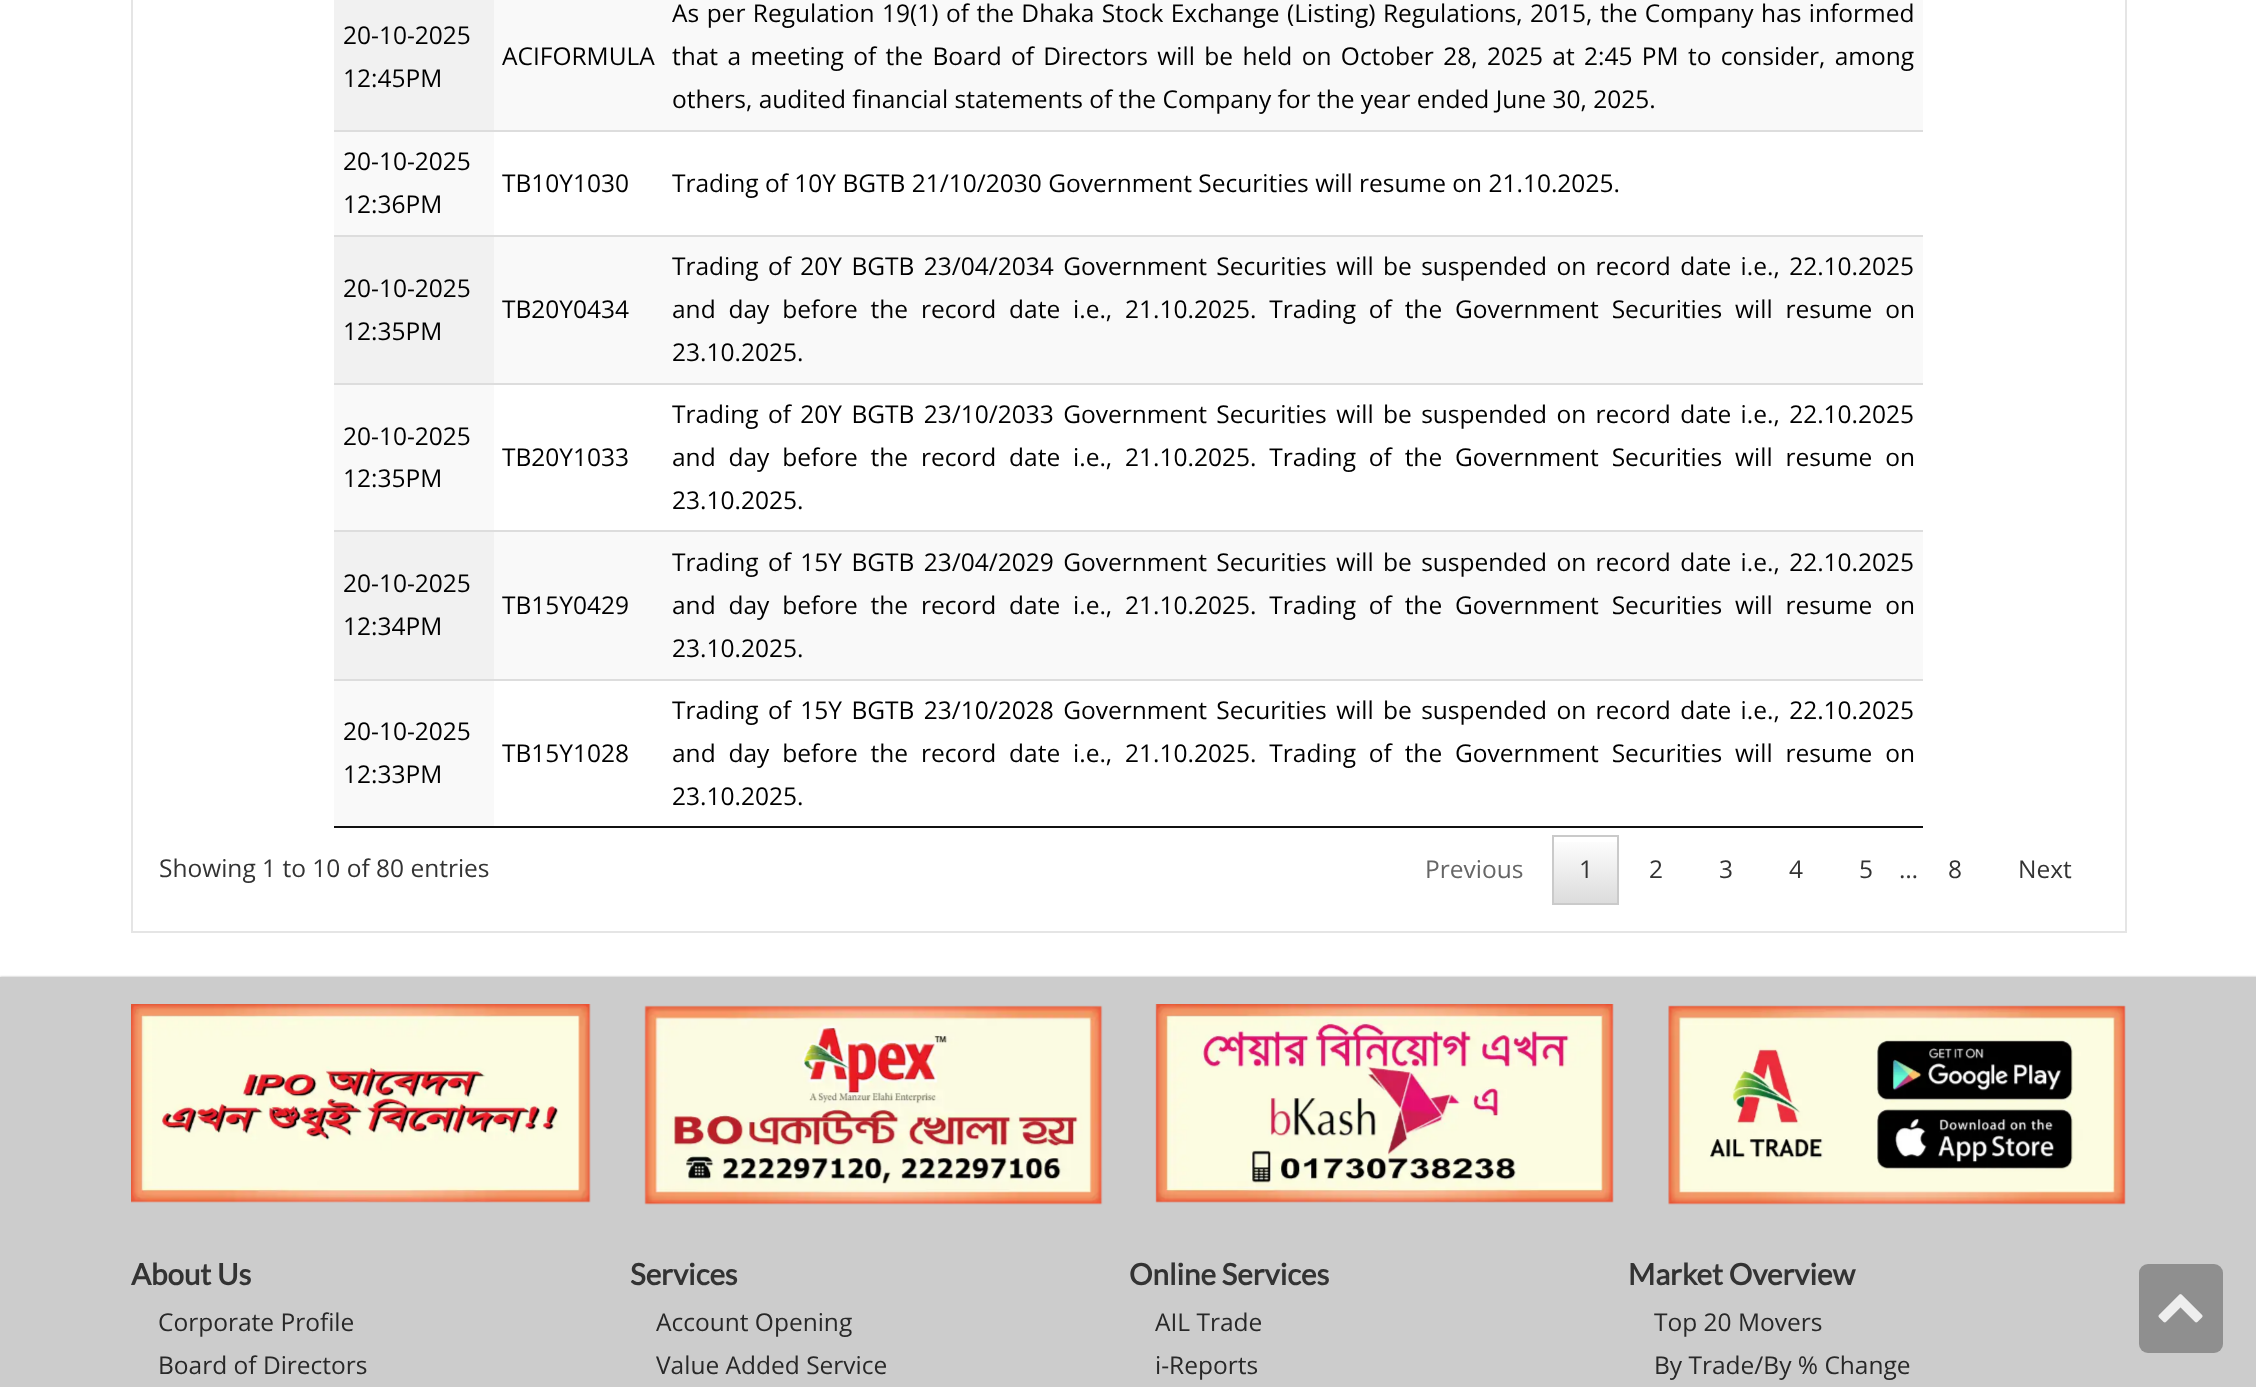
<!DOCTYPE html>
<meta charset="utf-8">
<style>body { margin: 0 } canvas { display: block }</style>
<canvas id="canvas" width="2256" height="1387"></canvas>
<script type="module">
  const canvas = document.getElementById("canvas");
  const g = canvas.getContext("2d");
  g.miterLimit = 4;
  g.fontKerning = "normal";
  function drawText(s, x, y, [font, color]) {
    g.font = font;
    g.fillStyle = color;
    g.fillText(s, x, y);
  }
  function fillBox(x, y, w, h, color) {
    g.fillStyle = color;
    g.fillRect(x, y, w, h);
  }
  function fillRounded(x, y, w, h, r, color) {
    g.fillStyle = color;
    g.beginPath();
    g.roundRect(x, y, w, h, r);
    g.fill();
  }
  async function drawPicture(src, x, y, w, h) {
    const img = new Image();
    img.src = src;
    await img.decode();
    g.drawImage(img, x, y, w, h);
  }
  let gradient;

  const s1 = ["24.5px Open Sans", "#000000"];
  const s2 = ["24.5px Open Sans", "#333333"];
  const s3 = ["24.5px Open Sans", "#666666"];
  const s4 = ["bold 29.5px Lato", "#333333"];
  const s5 = ["24.5px Open Sans", "#282828"];

  fillBox(0, 0, 2256, 1387, "#FFFFFF");
  fillBox(2125, 0, 2, 933, "#E5E5E5");
  fillBox(131, 931, 1995, 2, "#E5E5E5");
  fillBox(131, 0, 2, 933, "#E5E5E5");
  fillBox(334, 826, 1589, 2, "#111111");
  fillBox(494, 0, 1429, 130, "#F9F9F9");
  fillBox(334, 0, 160, 130, "#F1F1F1");
  drawText("20-10-2025", 343, 44, s1);
  drawText("12:45PM", 343, 87, s1);
  drawText("ACIFORMULA", 502, 65, s1);
  g.wordSpacing = "1.1px";
  drawText("As per Regulation 19(1) of the Dhaka Stock Exchange (Listing) Regulations, 2015, the Company has informed", 672, 22, s1);
  g.wordSpacing = "3px";
  drawText("that a meeting of the Board of Directors will be held on October 28, 2025 at 2:45 PM to consider, among", 672, 65, s1);
  g.wordSpacing = "0px";
  drawText("others, audited financial statements of the Company for the year ended June 30, 2025.", 672, 108, s1);
  fillBox(334, 132, 160, 103, "#F9F9F9");
  fillBox(334, 130, 1589, 2, "#DDDDDD");
  drawText("20-10-2025", 343, 170, s1);
  drawText("12:36PM", 343, 213, s1);
  drawText("TB10Y1030", 502, 192, s1);
  drawText("Trading of 10Y BGTB 21/10/2030 Government Securities will resume on 21.10.2025.", 672, 192, s1);
  fillBox(494, 237, 1429, 146, "#F9F9F9");
  fillBox(334, 237, 160, 146, "#F1F1F1");
  fillBox(334, 235, 1589, 2, "#DDDDDD");
  drawText("20-10-2025", 343, 297, s1);
  drawText("12:35PM", 343, 340, s1);
  drawText("TB20Y0434", 502, 318, s1);
  g.wordSpacing = "3px";
  drawText("Trading of 20Y BGTB 23/04/2034 Government Securities will be suspended on record date i.e., 22.10.2025", 672, 275, s1);
  g.wordSpacing = "6.5px";
  drawText("and day before the record date i.e., 21.10.2025. Trading of the Government Securities will resume on", 672, 318, s1);
  g.wordSpacing = "0px";
  drawText("23.10.2025.", 672, 361, s1);
  fillBox(334, 385, 160, 145, "#F9F9F9");
  fillBox(334, 383, 1589, 2, "#DDDDDD");
  drawText("20-10-2025", 343, 445, s1);
  drawText("12:35PM", 343, 487, s1);
  drawText("TB20Y1033", 502, 466, s1);
  g.wordSpacing = "3px";
  drawText("Trading of 20Y BGTB 23/10/2033 Government Securities will be suspended on record date i.e., 22.10.2025", 672, 423, s1);
  g.wordSpacing = "6.5px";
  drawText("and day before the record date i.e., 21.10.2025. Trading of the Government Securities will resume on", 672, 466, s1);
  g.wordSpacing = "0px";
  drawText("23.10.2025.", 672, 509, s1);
  fillBox(494, 532, 1429, 147, "#F9F9F9");
  fillBox(334, 532, 160, 147, "#F1F1F1");
  fillBox(334, 530, 1589, 2, "#DDDDDD");
  drawText("20-10-2025", 343, 592, s1);
  drawText("12:34PM", 343, 635, s1);
  drawText("TB15Y0429", 502, 614, s1);
  g.wordSpacing = "3px";
  drawText("Trading of 15Y BGTB 23/04/2029 Government Securities will be suspended on record date i.e., 22.10.2025", 672, 571, s1);
  g.wordSpacing = "6.5px";
  drawText("and day before the record date i.e., 21.10.2025. Trading of the Government Securities will resume on", 672, 614, s1);
  g.wordSpacing = "0px";
  drawText("23.10.2025.", 672, 657, s1);
  fillBox(334, 681, 160, 145, "#F9F9F9");
  fillBox(334, 679, 1589, 2, "#DDDDDD");
  drawText("20-10-2025", 343, 740, s1);
  drawText("12:33PM", 343, 783, s1);
  drawText("TB15Y1028", 502, 762, s1);
  g.wordSpacing = "3px";
  drawText("Trading of 15Y BGTB 23/10/2028 Government Securities will be suspended on record date i.e., 22.10.2025", 672, 719, s1);
  g.wordSpacing = "6.5px";
  drawText("and day before the record date i.e., 21.10.2025. Trading of the Government Securities will resume on", 672, 762, s1);
  g.wordSpacing = "0px";
  drawText("23.10.2025.", 672, 805, s1);
  drawText("Showing 1 to 10 of 80 entries", 159, 877, s2);
  drawText("Previous", 1425, 878, s3);
  gradient = g.createLinearGradient(1586, 837, 1586, 903);
  gradient.addColorStop(0, "#FFFFFF");
  gradient.addColorStop(1, "#DCDCDC");
  g.fillStyle = gradient;
  g.fillRect(1554, 842, 63, 61);
  g.strokeStyle = "#CACACA";
  g.lineWidth = 2;
  g.strokeRect(1553, 836, 65, 68);
  drawText("1", 1579, 878, s2);
  drawText("2", 1649, 878, s2);
  drawText("3", 1719, 878, s2);
  drawText("4", 1789, 878, s2);
  drawText("5", 1859, 878, s2);
  drawText("…", 1899, 878, s2);
  drawText("8", 1948, 878, s2);
  drawText("Next", 2018, 878, s2);
  g.fillStyle = "rgba(0, 0, 0, 0.3)";
  g.filter = "blur(1px)";
  g.beginPath();
  g.rect(0, 977, 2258, 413);
  g.fill();
  g.filter = "none";
  fillBox(0, 977, 2256, 410, "#CCCCCC");
  await drawPicture("pic1.png", 131, 1004, 460, 199);
  await drawPicture("pic2.png", 644, 1005, 459, 200);
  await drawPicture("pic3.png", 1155, 1004, 459, 199);
  await drawPicture("pic4.png", 1668, 1005, 458, 200);
  drawText("About Us", 131, 1285, s4);
  drawText("Corporate Profile", 158, 1331, s5);
  drawText("Board of Directors", 158, 1374, s5);
  drawText("Services", 630, 1285, s4);
  drawText("Account Opening", 656, 1331, s5);
  drawText("Value Added Service", 656, 1374, s5);
  drawText("Online Services", 1129, 1285, s4);
  drawText("AIL Trade", 1155, 1331, s5);
  drawText("i-Reports", 1155, 1374, s5);
  drawText("Market Overview", 1628, 1285, s4);
  drawText("Top 20 Movers", 1654, 1331, s5);
  drawText("By Trade/By % Change", 1654, 1374, s5);
  fillRounded(2139, 1264, 84, 89, 9, "#8F8F8F");
  await drawPicture("pic5.png", 2158, 1294, 45, 29);
</script>
